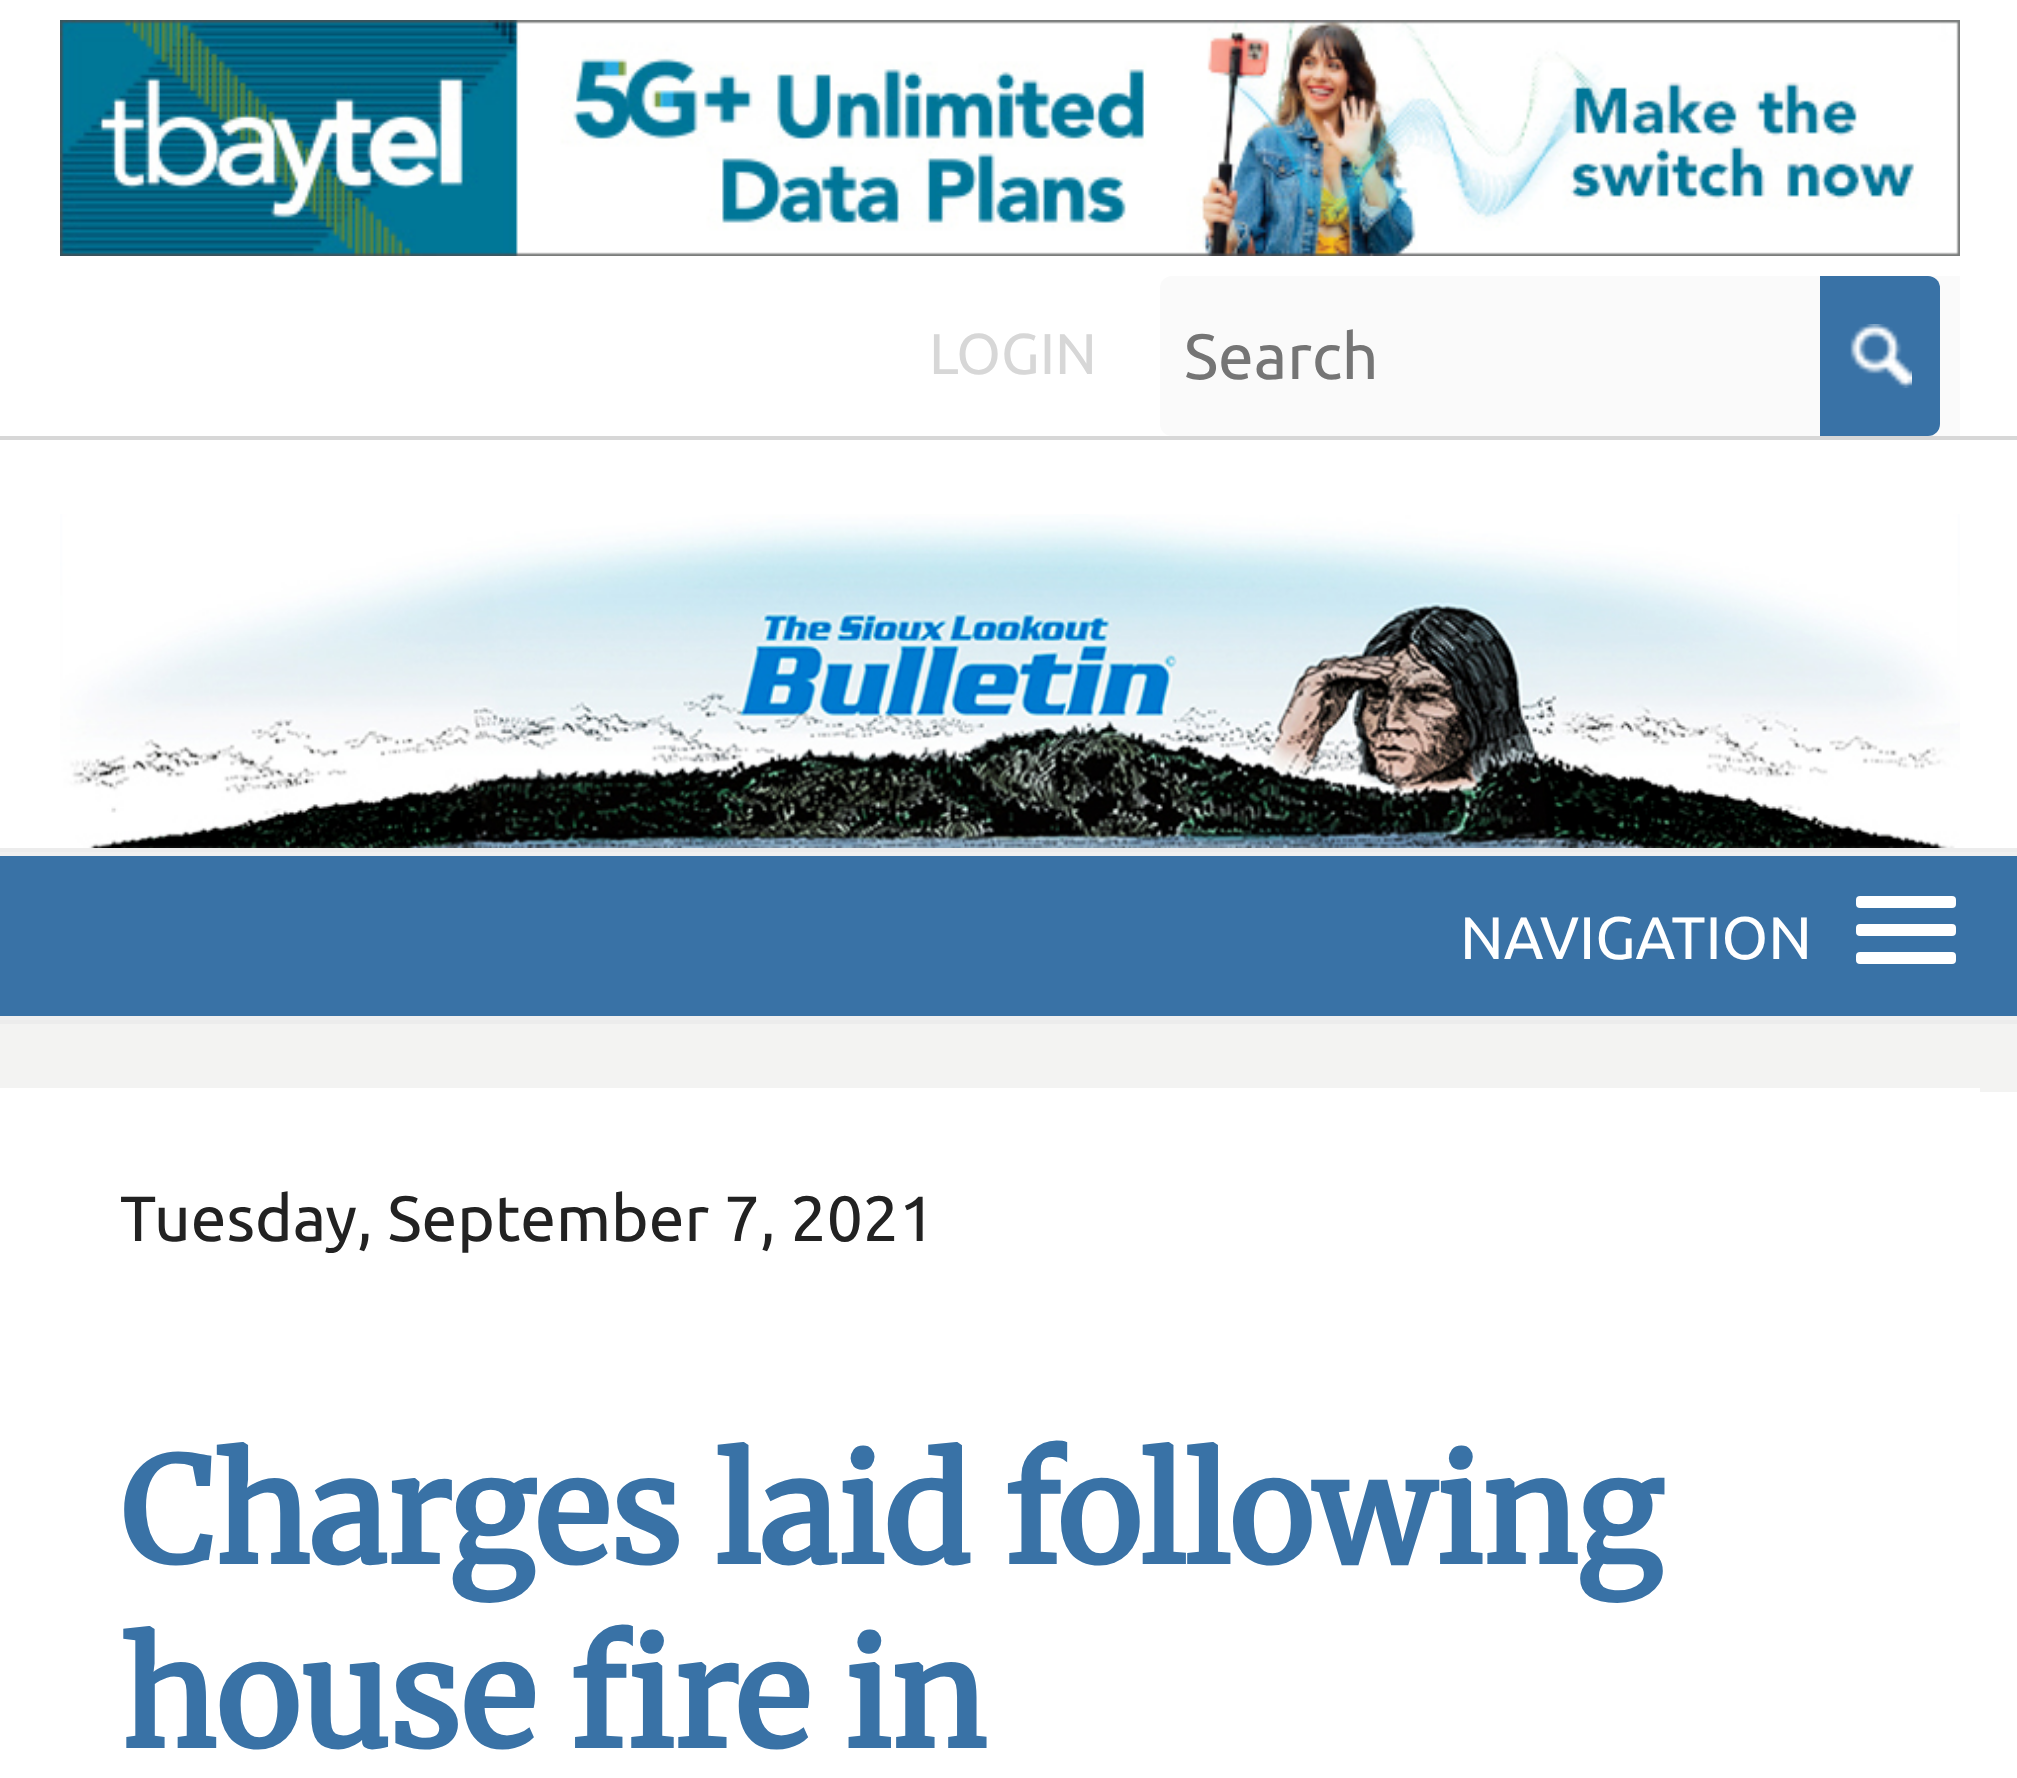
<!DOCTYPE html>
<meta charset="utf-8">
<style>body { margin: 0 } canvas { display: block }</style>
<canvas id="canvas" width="2017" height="1778"></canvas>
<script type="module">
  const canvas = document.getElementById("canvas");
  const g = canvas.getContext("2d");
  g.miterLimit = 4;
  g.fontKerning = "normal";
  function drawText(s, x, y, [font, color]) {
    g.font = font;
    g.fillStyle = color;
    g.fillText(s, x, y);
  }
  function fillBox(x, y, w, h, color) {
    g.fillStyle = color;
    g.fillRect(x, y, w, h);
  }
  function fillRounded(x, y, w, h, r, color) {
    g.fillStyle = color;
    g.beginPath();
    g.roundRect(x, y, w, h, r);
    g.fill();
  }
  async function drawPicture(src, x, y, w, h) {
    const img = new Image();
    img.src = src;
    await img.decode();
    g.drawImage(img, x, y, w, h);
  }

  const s1 = ["57.5px Ubuntu", "#D7D7D7"];
  const s2 = ["64px Ubuntu", "#757575"];
  const s3 = ["60px Ubuntu", "#FFFFFF"];
  const s4 = ["64px Ubuntu", "#222222"];
  const s5 = ["bold 144px Merriweather", "#3972A6"];

  fillBox(0, 0, 2017, 1778, "#FFFFFF");
  await drawPicture("pic1.png", 60, 20, 1900, 236);
  fillBox(0, 436, 2017, 4, "#D7D7D7");
  drawText("LOGIN", 929, 374, s1);
  g.fillStyle = "#FAFAFA";
  g.beginPath();
  g.roundRect(1160, 276, 800, 160, [12, 0, 0, 12]);
  g.fill();
  drawText("Search", 1184, 379, s2);
  g.fillStyle = "#3972A6";
  g.beginPath();
  g.roundRect(1820, 276, 120, 160, [0, 12, 12, 0]);
  g.fill();
  await drawPicture("pic2.png", 1850, 324, 62, 64);
  await drawPicture("pic3.png", 60, 514, 1900, 334);
  fillBox(0, 848, 2017, 4, "#ECECEC");
  fillBox(0, 1020, 2017, 4, "#ECECEC");
  fillBox(0, 856, 2017, 160, "#3972A6");
  fillBox(0, 852, 2017, 4, "#F0F0F0");
  fillBox(0, 1016, 2017, 4, "#F0F0F0");
  fillRounded(1856, 896, 100, 12, 4, "#FFFFFF");
  drawText("NAVIGATION", 1460, 959, s3);
  fillRounded(1856, 924, 100, 12, 4, "#FFFFFF");
  fillRounded(1856, 952, 100, 12, 4, "#FFFFFF");
  fillBox(0, 1024, 2017, 64, "#F3F3F2");
  fillBox(1980, 1088, 37, 4, "#F3F3F2");
  drawText("Tuesday, September 7, 2021", 120, 1241, s4);
  drawText("Charges laid following", 120, 1564, s5);
  drawText("house fire in", 120, 1748, s5);
</script>
